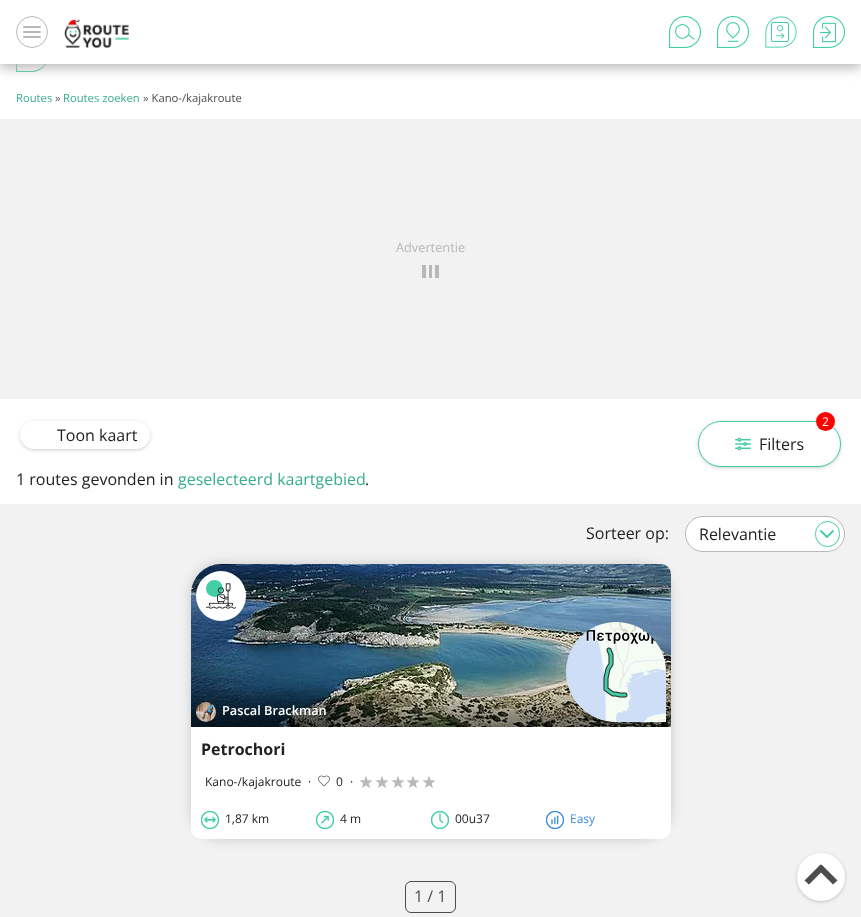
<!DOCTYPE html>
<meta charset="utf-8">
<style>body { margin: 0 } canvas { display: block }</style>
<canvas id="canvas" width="861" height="917"></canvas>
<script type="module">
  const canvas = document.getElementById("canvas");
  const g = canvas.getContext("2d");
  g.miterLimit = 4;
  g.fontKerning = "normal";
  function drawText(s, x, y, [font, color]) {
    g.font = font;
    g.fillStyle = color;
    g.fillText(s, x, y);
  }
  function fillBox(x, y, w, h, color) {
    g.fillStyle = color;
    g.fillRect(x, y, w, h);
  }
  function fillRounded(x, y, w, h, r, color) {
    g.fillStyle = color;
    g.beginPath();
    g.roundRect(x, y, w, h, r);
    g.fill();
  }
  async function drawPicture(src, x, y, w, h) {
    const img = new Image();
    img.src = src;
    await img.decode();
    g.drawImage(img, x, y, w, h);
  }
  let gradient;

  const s1 = ["11.25px Open Sans", "#38AE8E"];
  const s2 = ["11.25px Open Sans", "#4D4D4D"];
  const s3 = ["12.75px Open Sans", "#B8B8B8"];
  const s4 = ["16px Open Sans", "#222222"];
  const s5 = ["12px Open Sans", "#FFFFFF"];
  const s6 = ["16px Open Sans", "#38AE8E"];
  const s7 = ["600 12.75px Open Sans", "#FFFFFF"];
  const s8 = ["bold 16px Open Sans", "#222222"];
  const s9 = ["12px Open Sans", "#222222"];
  const s10 = ["12px Open Sans", "#3B8EDA"];
  const s11 = ["16px Open Sans", "#4D4D4D"];

  fillBox(0, 0, 861, 917, "#FFFFFF");
  await drawPicture("pic6.png", 16, 64, 30, 8);
  g.fillStyle = "#B8B8B8";
  g.filter = "blur(6px)";
  g.beginPath();
  g.rect(0, 4, 861, 64);
  g.fill();
  g.filter = "none";
  fillBox(0, 0, 861, 64, "#FFFFFF");
  g.beginPath();
  g.arc(32, 32, 15.5, 0, Math.PI * 2);
  g.strokeStyle = "#B8B8B8";
  g.stroke();
  fillRounded(23, 26, 18, 2, 1, "#B8B8B8");
  fillRounded(23, 31, 18, 2, 1, "#B8B8B8");
  fillRounded(23, 36, 18, 2, 1, "#B8B8B8");
  await drawPicture("pic1.png", 64, 18, 65, 30);
  await drawPicture("pic2.png", 669, 16, 32, 32);
  await drawPicture("pic3.png", 717, 16, 32, 32);
  await drawPicture("pic4.png", 765, 16, 32, 32);
  await drawPicture("pic5.png", 813, 16, 32, 32);
  drawText("Routes", 16, 102, s1);
  drawText("»", 55, 102, s2);
  drawText("Routes zoeken", 63, 102, s1);
  drawText("» Kano-/kajakroute", 143, 102, s2);
  fillBox(0, 119, 861, 280, "#F2F2F2");
  drawText("Advertentie", 396, 252, s3);
  fillBox(429, 265, 3, 13, "#B8B8B8");
  fillBox(422, 265, 4, 13, "#B8B8B8");
  fillBox(435, 265, 4, 13, "#B8B8B8");
  g.fillStyle = "rgba(0, 0, 0, 0.3)";
  g.filter = "blur(2px)";
  g.beginPath();
  g.roundRect(21, 423, 128, 26, 13);
  g.fill();
  g.filter = "none";
  fillRounded(20, 421, 130, 28, 14, "#FFFFFF");
  drawText("Toon kaart", 57, 441, s4);
  g.fillStyle = "rgba(0, 0, 0, 0.3)";
  g.filter = "blur(2px)";
  g.beginPath();
  g.roundRect(699, 423, 141, 44, 22);
  g.fill();
  g.filter = "none";
  g.fillStyle = "#FFFFFF";
  g.beginPath();
  g.roundRect(698.5, 421.5, 142, 45, 22.5);
  g.fill();
  g.strokeStyle = "#42CDA7";
  g.stroke();
  g.fillStyle = "#FF0000";
  g.beginPath();
  g.arc(825.5, 421.5, 9.5, 0, Math.PI * 2);
  g.fill();
  drawText("2", 822, 426, s5);
  await drawPicture("pic7.png", 735, 437, 16, 14);
  drawText("Filters", 759, 450, s4);
  drawText("1 routes gevonden in", 16, 485, s4);
  drawText("geselecteerd kaartgebied", 178, 485, s6);
  drawText(".", 365, 485, s4);
  fillBox(0, 504, 861, 413, "#F2F2F2");
  drawText("Sorteer op:", 586, 539, s4);
  g.fillStyle = "#FFFFFF";
  g.beginPath();
  g.roundRect(685.5, 516.5, 159, 35, 17.5);
  g.fill();
  g.strokeStyle = "#B8B8B8";
  g.stroke();
  drawText("Relevantie", 699, 540, s4);
  g.beginPath();
  g.roundRect(815.5, 521.5, 24, 25, 12);
  g.strokeStyle = "#42CDA7";
  g.stroke();
  g.beginPath();
  g.moveTo(833, 531);
  g.lineTo(827, 537);
  g.lineTo(821, 531);
  g.lineWidth = 1.8;
  g.lineCap = "round";
  g.lineJoin = "round";
  g.stroke();
  g.fillStyle = "rgba(34, 34, 34, 0.2)";
  g.filter = "blur(6px)";
  g.beginPath();
  g.roundRect(191, 564, 480, 275, 30);
  g.fill();
  g.filter = "none";
  g.fillStyle = "#FFFFFF";
  g.beginPath();
  g.roundRect(191, 564, 480, 275, [30, 10, 10, 10]);
  g.fill();
  await drawPicture("pic8.png", 191, 564, 480, 163);
  g.beginPath();
  g.arc(221, 596, 25, 0, Math.PI * 2);
  g.fill();
  g.fillStyle = "#42CDA7";
  g.beginPath();
  g.arc(214.5, 588.5, 8.5, 0, Math.PI * 2);
  g.fill();
  await drawPicture("pic9.png", 206, 583, 30, 26);
  gradient = g.createLinearGradient(431, 727, 431, 564);
  gradient.addColorStop(0, "rgba(0, 0, 0, 0.5)");
  gradient.addColorStop(0.25, "rgba(0, 0, 0, 0)");
  g.fillStyle = gradient;
  g.fillRect(191, 688, 480, 39);
  await drawPicture("pic10.png", 566, 622, 100, 100);
  await drawPicture("pic11.png", 196, 702, 20, 20);
  drawText("Pascal Brackman", 222, 715, s7);
  drawText("Petrochori", 201, 755, s8);
  drawText("Kano-/kajakroute", 205, 786, s9);
  drawText("·", 308, 786, s9);
  await drawPicture("pic12.png", 318, 775, 12, 12);
  drawText("0", 336, 786, s9);
  drawText("·", 350, 786, s9);
  await drawPicture("pic13.png", 360, 776, 12, 12);
  await drawPicture("pic13.png", 376, 776, 12, 12);
  await drawPicture("pic13.png", 392, 776, 12, 12);
  await drawPicture("pic13.png", 407, 776, 12, 12);
  await drawPicture("pic13.png", 423, 776, 12, 12);
  await drawPicture("pic14.png", 201, 811, 18, 18);
  drawText("1,87 km", 225, 823, s9);
  await drawPicture("pic15.png", 316, 811, 18, 18);
  drawText("4 m", 340, 823, s9);
  g.save();
  g.beginPath();
  g.rect(431, 811, 18, 18);
  g.clip();
  g.beginPath();
  g.arc(440, 820, 8.5, 0, Math.PI * 2);
  g.lineWidth = 1.4;
  g.stroke();
  g.restore();
  g.beginPath();
  g.moveTo(440, 820);
  g.lineTo(440, 814);
  g.moveTo(442.5, 822.5);
  g.lineTo(440, 820);
  g.lineWidth = 1.4;
  g.lineJoin = "miter";
  g.stroke();
  drawText("00u37", 455, 823, s9);
  await drawPicture("pic16.png", 546, 811, 18, 18);
  drawText("Easy", 570, 823, s10);
  g.beginPath();
  g.roundRect(405.5, 881.5, 50, 31, 5.5);
  g.strokeStyle = "#4D4D4D";
  g.lineWidth = 1;
  g.stroke();
  drawText("1 / 1", 414, 902, s11);
  g.fillStyle = "rgba(0, 0, 0, 0.3)";
  g.filter = "blur(2px)";
  g.beginPath();
  g.roundRect(798, 855, 46, 46, 23);
  g.fill();
  g.filter = "none";
  g.fillStyle = "#FFFFFF";
  g.beginPath();
  g.arc(821, 877, 24, 0, Math.PI * 2);
  g.fill();
  g.fillStyle = "#4D4D4D";
  g.beginPath();
  g.moveTo(821.5, 864.5);
  g.lineTo(837.5, 880.5);
  g.lineTo(833, 884.5);
  g.lineTo(817.5, 869);
  g.closePath();
  g.fill();
  g.beginPath();
  g.moveTo(820.5, 864.5);
  g.lineTo(824.5, 869);
  g.lineTo(809, 884.5);
  g.lineTo(804.5, 880.5);
  g.closePath();
  g.fill();
</script>
